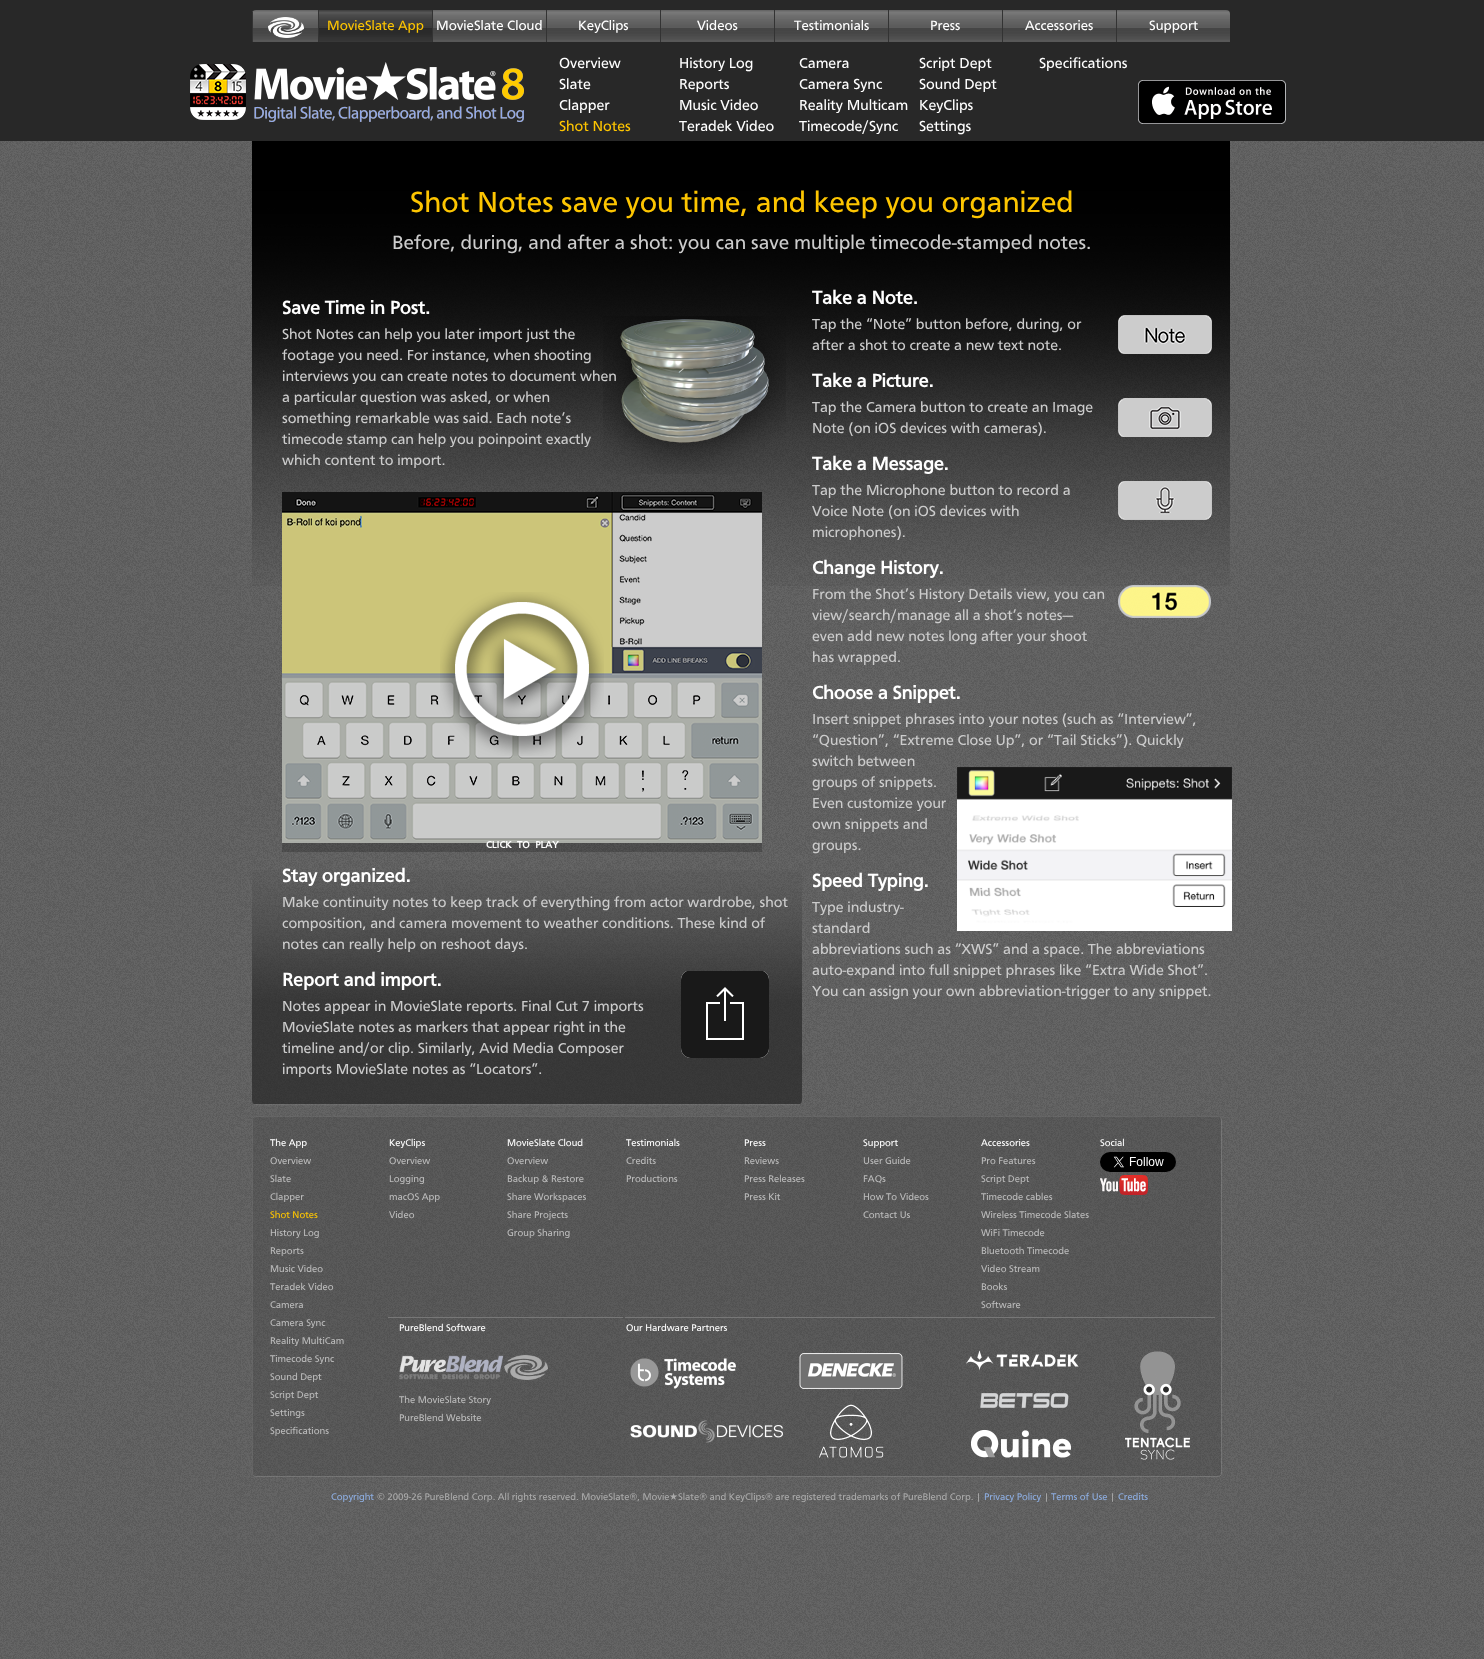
<!DOCTYPE html>
<meta charset="utf-8">
<style>body { margin: 0 } canvas { display: block }</style>
<canvas id="canvas" width="1484" height="1659"></canvas>
<script type="module">
  const canvas = document.getElementById("canvas");
  const g = canvas.getContext("2d");
  g.miterLimit = 4;
  g.fontKerning = "normal";
  function drawText(s, x, y, [font, color]) {
    g.font = font;
    g.fillStyle = color;
    g.fillText(s, x, y);
  }
  function fillBox(x, y, w, h, color) {
    g.fillStyle = color;
    g.fillRect(x, y, w, h);
  }
  function fillRounded(x, y, w, h, r, color) {
    g.fillStyle = color;
    g.beginPath();
    g.roundRect(x, y, w, h, r);
    g.fill();
  }
  async function drawPicture(src, x, y, w, h) {
    const img = new Image();
    img.src = src;
    await img.decode();
    g.drawImage(img, x, y, w, h);
  }

  const s1 = ["14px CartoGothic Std", "#FDC501"];
  const s2 = ["14px CartoGothic Std", "#FFFFFF"];
  const s3 = ["15px CartoGothic Std", "#FFFFFF"];
  const s4 = ["15px CartoGothic Std", "#FDC501"];
  const s5 = ["30px CartoGothic Std", "#FDC501"];
  const s6 = ["20px CartoGothic Std", "#CCCCCC"];
  const s7 = ["bold 19px CartoGothic Std", "#FFFFFF"];
  const s8 = ["15px CartoGothic Std", "#CCCCCC"];
  const s9 = ["bold 10px CartoGothic Std", "#FFFFFF"];
  const s10 = ["10px CartoGothic Std", "#FFFFFF"];
  const s11 = ["10px CartoGothic Std", "#BBBBBB"];
  const s12 = ["10px CartoGothic Std", "#FDC501"];
  const s13 = ["10px CartoGothic Std", "#8DADE0"];
  const s14 = ["10px CartoGothic Std", "#AAAAAA"];
  const s15 = ["10px DejaVu Sans", "#AAAAAA"];

  fillBox(0, 0, 1484, 1659, "#FFFFFF");
  await drawPicture("pic1.png", 0, 141, 1484, 1518);
  fillBox(0, 0, 1484, 141, "#282828");
  await drawPicture("pic2.png", 252, 10, 66, 32);
  fillBox(252, 12, 1, 32, "#333333");
  await drawPicture("pic3.png", 268, 17, 36, 21);
  await drawPicture("pic4.png", 319, 10, 113, 32);
  fillBox(318, 10, 1, 36, "#333333");
  drawText("MovieSlate App", 327, 30, s1);
  await drawPicture("pic5.png", 433, 10, 113, 32);
  fillBox(432, 10, 1, 36, "#333333");
  drawText("MovieSlate Cloud", 436, 30, s2);
  await drawPicture("pic5.png", 547, 10, 113, 32);
  fillBox(546, 10, 1, 36, "#333333");
  drawText("KeyClips", 578, 30, s2);
  await drawPicture("pic5.png", 661, 10, 113, 32);
  fillBox(660, 10, 1, 36, "#333333");
  drawText("Videos", 697, 30, s2);
  await drawPicture("pic5.png", 775, 10, 113, 32);
  fillBox(774, 10, 1, 36, "#333333");
  drawText("Testimonials", 794, 30, s2);
  await drawPicture("pic5.png", 889, 10, 113, 32);
  fillBox(888, 10, 1, 36, "#333333");
  drawText("Press", 930, 30, s2);
  await drawPicture("pic5.png", 1003, 10, 113, 32);
  fillBox(1002, 10, 1, 36, "#333333");
  drawText("Accessories", 1025, 30, s2);
  await drawPicture("pic6.png", 1117, 10, 113, 32);
  fillBox(1116, 10, 1, 36, "#333333");
  drawText("Support", 1149, 30, s2);
  fillBox(252, 42, 865, 4, "#282828");
  await drawPicture("pic7.png", 190, 62, 334, 60);
  drawText("Overview", 559, 68, s3);
  drawText("Slate", 559, 89, s3);
  drawText("Clapper", 559, 110, s3);
  drawText("Shot Notes", 559, 131, s4);
  drawText("History Log", 679, 68, s3);
  drawText("Reports", 679, 89, s3);
  drawText("Music Video", 679, 110, s3);
  drawText("Teradek Video", 679, 131, s3);
  drawText("Camera", 799, 68, s3);
  drawText("Camera Sync", 799, 89, s3);
  drawText("Reality Multicam", 799, 110, s3);
  drawText("Timecode/Sync", 799, 131, s3);
  drawText("Script Dept", 919, 68, s3);
  drawText("Sound Dept", 919, 89, s3);
  drawText("KeyClips", 919, 110, s3);
  drawText("Settings", 919, 131, s3);
  drawText("Specifications", 1039, 68, s3);
  await drawPicture("pic8.png", 1138, 80, 148, 44);
  await drawPicture("pic9.png", 252, 141, 978, 445);
  drawText("Shot Notes save you time, and keep you organized", 410, 212, s5);
  drawText("Before, during, and after a shot: you can save multiple timecode-stamped notes.", 392, 249, s6);
  await drawPicture("pic10.png", 252, 870, 550, 236);
  drawText("Save Time in Post.", 282, 314, s7);
  await drawPicture("pic11.png", 603, 316, 183, 158);
  drawText("Shot Notes can help you later import just the", 282, 339, s8);
  drawText("footage you need. For instance, when shooting", 282, 360, s8);
  drawText("interviews you can create notes to document when", 282, 381, s8);
  drawText("a particular question was asked, or when", 282, 402, s8);
  drawText("something remarkable was said. Each note’s", 282, 423, s8);
  drawText("timecode stamp can help you poinpoint exactly", 282, 444, s8);
  drawText("which content to import.", 282, 465, s8);
  await drawPicture("pic12.png", 282, 492, 480, 351);
  fillBox(282, 492, 480, 360, "rgba(0, 0, 0, 0.2)");
  await drawPicture("pic13.png", 440, 592, 164, 164);
  g.wordSpacing = "3px";
  drawText("CLICK TO PLAY", 486, 848, s9);
  g.wordSpacing = "0px";
  drawText("Stay organized.", 282, 882, s7);
  drawText("Make continuity notes to keep track of everything from actor wardrobe, shot", 282, 907, s8);
  drawText("composition, and camera movement to weather conditions. These kind of", 282, 928, s8);
  drawText("notes can really help on reshoot days.", 282, 949, s8);
  drawText("Report and import.", 282, 986, s7);
  await drawPicture("pic14.png", 681, 971, 88, 87);
  drawText("Notes appear in MovieSlate reports. Final Cut 7 imports", 282, 1011, s8);
  drawText("MovieSlate notes as markers that appear right in the", 282, 1032, s8);
  drawText("timeline and/or clip. Similarly, Avid Media Composer", 282, 1053, s8);
  drawText("imports MovieSlate notes as “Locators”.", 282, 1074, s8);
  drawText("Take a Note.", 812, 304, s7);
  drawText("Tap the “Note” button before, during, or", 812, 329, s8);
  await drawPicture("pic15.png", 1118, 315, 94, 39);
  drawText("after a shot to create a new text note.", 812, 350, s8);
  drawText("Take a Picture.", 812, 387, s7);
  drawText("Tap the Camera button to create an Image", 812, 412, s8);
  await drawPicture("pic16.png", 1118, 398, 94, 39);
  drawText("Note (on iOS devices with cameras).", 812, 433, s8);
  drawText("Take a Message.", 812, 470, s7);
  drawText("Tap the Microphone button to record a", 812, 495, s8);
  await drawPicture("pic17.png", 1118, 481, 94, 39);
  drawText("Voice Note (on iOS devices with", 812, 516, s8);
  drawText("microphones).", 812, 537, s8);
  drawText("Change History.", 812, 574, s7);
  drawText("From the Shot’s History Details view, you can", 812, 599, s8);
  await drawPicture("pic18.png", 1118, 585, 93, 33);
  drawText("view/search/manage all a shot’s notes—", 812, 620, s8);
  drawText("even add new notes long after your shoot", 812, 641, s8);
  drawText("has wrapped.", 812, 662, s8);
  drawText("Choose a Snippet.", 812, 699, s7);
  drawText("Insert snippet phrases into your notes (such as “Interview”,", 812, 724, s8);
  drawText("“Question”, “Extreme Close Up”, or “Tail Sticks”). Quickly", 812, 745, s8);
  drawText("switch between", 812, 766, s8);
  drawText("groups of snippets.", 812, 787, s8);
  await drawPicture("pic19.png", 957, 767, 275, 164);
  drawText("Even customize your", 812, 808, s8);
  drawText("own snippets and", 812, 829, s8);
  drawText("groups.", 812, 850, s8);
  drawText("Speed Typing.", 812, 887, s7);
  drawText("Type industry-", 812, 912, s8);
  drawText("standard", 812, 933, s8);
  drawText("abbreviations such as “XWS” and a space. The abbreviations", 812, 954, s8);
  drawText("auto-expand into full snippet phrases like “Extra Wide Shot”.", 812, 975, s8);
  drawText("You can assign your own abbreviation-trigger to any snippet.", 812, 996, s8);
  fillRounded(252, 1116, 970, 361, 4, "rgba(51, 51, 51, 0.2)");
  g.beginPath();
  g.moveTo(1220.5, 1117.5);
  g.bezierCurveTo(1221, 1118, 1221.5, 1119, 1221.5, 1120);
  g.lineTo(1221.5, 1473);
  g.bezierCurveTo(1221.5, 1474, 1221, 1475, 1220.5, 1475.5);
  g.bezierCurveTo(1220, 1476, 1219, 1476.5, 1218, 1476.5);
  g.lineTo(256, 1476.5);
  g.bezierCurveTo(255, 1476.5, 254, 1476, 253.5, 1475.5);
  g.strokeStyle = "rgba(238, 238, 238, 0.2)";
  g.stroke();
  g.beginPath();
  g.moveTo(253.5, 1475.5);
  g.bezierCurveTo(253, 1475, 252.5, 1474, 252.5, 1473);
  g.lineTo(252.5, 1120);
  g.bezierCurveTo(252.5, 1119, 253, 1118, 253.5, 1117.5);
  g.bezierCurveTo(254, 1117, 255, 1116.5, 256, 1116.5);
  g.lineTo(1218, 1116.5);
  g.bezierCurveTo(1219, 1116.5, 1220, 1117, 1220.5, 1117.5);
  g.strokeStyle = "rgba(159, 159, 159, 0.2)";
  g.stroke();
  drawText("The App", 270, 1146, s10);
  drawText("Overview", 270, 1164, s11);
  drawText("Slate", 270, 1182, s11);
  drawText("Clapper", 270, 1200, s11);
  drawText("Shot Notes", 270, 1218, s12);
  drawText("History Log", 270, 1236, s11);
  drawText("Reports", 270, 1254, s11);
  drawText("Music Video", 270, 1272, s11);
  drawText("Teradek Video", 270, 1290, s11);
  drawText("Camera", 270, 1308, s11);
  drawText("Camera Sync", 270, 1326, s11);
  drawText("Reality MultiCam", 270, 1344, s11);
  drawText("Timecode Sync", 270, 1362, s11);
  drawText("Sound Dept", 270, 1380, s11);
  drawText("Script Dept", 270, 1398, s11);
  drawText("Settings", 270, 1416, s11);
  drawText("Specifications", 270, 1434, s11);
  drawText("KeyClips", 389, 1146, s10);
  drawText("Overview", 389, 1164, s11);
  drawText("Logging", 389, 1182, s11);
  drawText("macOS App", 389, 1200, s11);
  drawText("Video", 389, 1218, s11);
  drawText("MovieSlate Cloud", 507, 1146, s10);
  drawText("Overview", 507, 1164, s11);
  drawText("Backup & Restore", 507, 1182, s11);
  drawText("Share Workspaces", 507, 1200, s11);
  drawText("Share Projects", 507, 1218, s11);
  drawText("Group Sharing", 507, 1236, s11);
  drawText("Testimonials", 626, 1146, s10);
  drawText("Credits", 626, 1164, s11);
  drawText("Productions", 626, 1182, s11);
  drawText("Press", 744, 1146, s10);
  drawText("Reviews", 744, 1164, s11);
  drawText("Press Releases", 744, 1182, s11);
  drawText("Press Kit", 744, 1200, s11);
  drawText("Support", 863, 1146, s10);
  drawText("User Guide", 863, 1164, s11);
  drawText("FAQs", 863, 1182, s11);
  drawText("How To Videos", 863, 1200, s11);
  drawText("Contact Us", 863, 1218, s11);
  drawText("Accessories", 981, 1146, s10);
  drawText("Pro Features", 981, 1164, s11);
  drawText("Script Dept", 981, 1182, s11);
  drawText("Timecode cables", 981, 1200, s11);
  drawText("Wireless Timecode Slates", 981, 1218, s11);
  drawText("WiFi Timecode", 981, 1236, s11);
  drawText("Bluetooth Timecode", 981, 1254, s11);
  drawText("Video Stream", 981, 1272, s11);
  drawText("Books", 981, 1290, s11);
  drawText("Software", 981, 1308, s11);
  drawText("Social", 1100, 1146, s10);
  await drawPicture("pic20.png", 1100, 1152, 76, 20);
  await drawPicture("pic21.png", 1100, 1175, 48, 20);
  fillBox(388, 1317, 235, 1, "#777777");
  drawText("PureBlend Software", 399, 1331, s10);
  await drawPicture("pic22.png", 399, 1355, 149, 25);
  drawText("The MovieSlate Story", 399, 1403, s11);
  drawText("PureBlend Website", 399, 1421, s11);
  fillBox(625, 1317, 590, 1, "#777777");
  drawText("Our Hardware Partners", 626, 1331, s10);
  await drawPicture("pic23.png", 630, 1350, 560, 110);
  drawText("Copyright", 331, 1500, s13);
  drawText("© 2009-26 PureBlend Corp. All rights reserved. MovieSlate®, Movie", 377, 1500, s14);
  drawText("★", 669, 1500, s15);
  drawText("Slate® and KeyClips® are registered trademarks of PureBlend Corp. |", 678, 1500, s14);
  drawText("Privacy Policy", 984, 1500, s13);
  drawText("|", 1044, 1500, s14);
  drawText("Terms of Use", 1051, 1500, s13);
  drawText("|", 1110, 1500, s14);
  drawText("Credits", 1118, 1500, s13);
</script>
